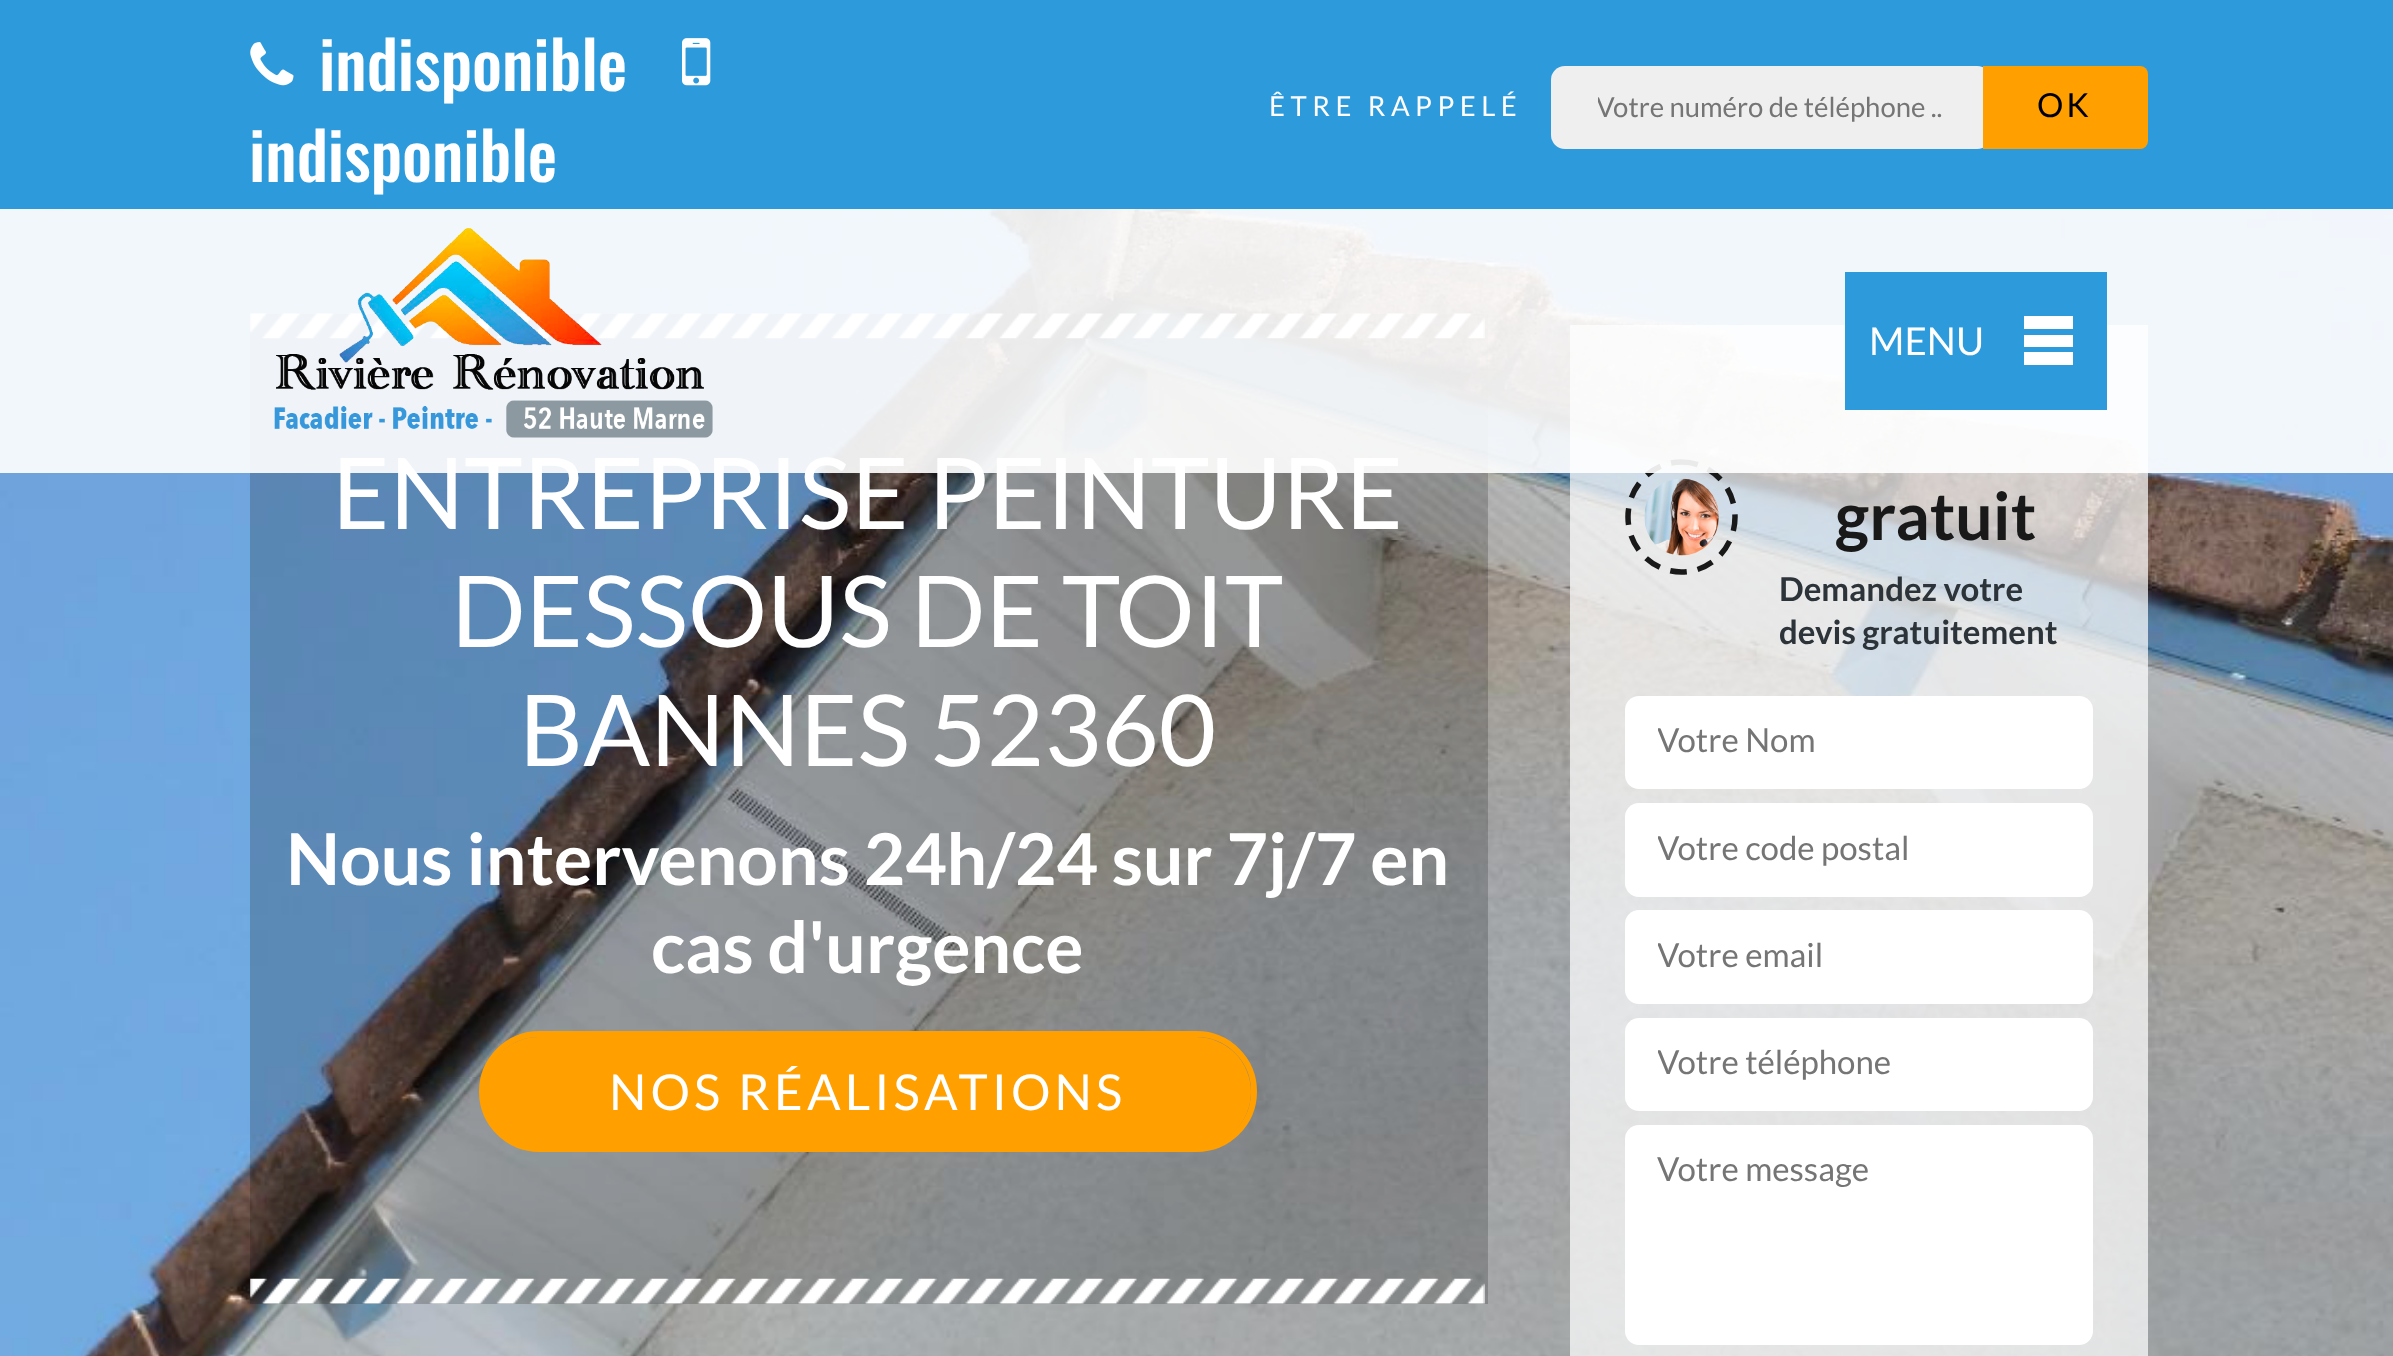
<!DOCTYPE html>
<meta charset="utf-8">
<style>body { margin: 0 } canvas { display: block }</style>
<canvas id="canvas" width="2393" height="1356"></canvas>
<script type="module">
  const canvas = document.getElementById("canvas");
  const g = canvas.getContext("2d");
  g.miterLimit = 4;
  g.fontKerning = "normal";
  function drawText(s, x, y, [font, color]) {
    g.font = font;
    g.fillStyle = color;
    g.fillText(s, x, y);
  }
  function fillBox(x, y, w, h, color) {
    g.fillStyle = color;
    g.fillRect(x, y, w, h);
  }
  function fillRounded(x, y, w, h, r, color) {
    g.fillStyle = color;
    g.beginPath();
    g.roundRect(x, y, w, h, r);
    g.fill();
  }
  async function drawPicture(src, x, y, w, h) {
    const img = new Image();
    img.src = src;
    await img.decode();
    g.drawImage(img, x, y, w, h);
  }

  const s1 = ["500 66px Oswald", "#FFFFFF"];
  const s2 = ["27.5px Lato", "#FFFFFF"];
  const s3 = ["27.5px Lato", "#757575"];
  const s4 = ["33px Lato", "#000000"];
  const s5 = ["99px Lato", "#FFFFFF"];
  const s6 = ["38.5px Lato", "#FFFFFF"];
  const s7 = ["bold 71.5px Lato", "#FFFFFF"];
  const s8 = ["49.5px Lato", "#FFFFFF"];
  const s9 = ["bold 66px Lato", "#181918"];
  const s10 = ["bold 33px Lato", "#2C3339"];
  const s11 = ["33px Lato", "#757575"];

  fillBox(0, 0, 2393, 1356, "#FFFFFF");
  fillBox(0, 0, 2393, 209, "#2D9BDB");
  await drawPicture("pic1.png", 250, 42, 44, 44);
  drawText("indisponible", 319, 91, s1);
  await drawPicture("pic2.png", 682, 38, 29, 48);
  drawText("indisponible", 249, 182, s1);
  g.letterSpacing = "5.5px";
  drawText("ÊTRE RAPPELÉ", 1269, 116, s2);
  fillRounded(1551, 66, 440, 83, 14, "#EFEFEF");
  g.save();
  g.beginPath();
  g.rect(1598, 91, 346, 33);
  g.clip();
  g.letterSpacing = "0px";
  drawText("Votre numéro de téléphone ..", 1596, 117, s3);
  g.restore();
  g.fillStyle = "#FF9F00";
  g.beginPath();
  g.roundRect(1983, 66, 165, 83, [0, 8, 8, 0]);
  g.fill();
  g.letterSpacing = "3px";
  drawText("OK", 2037, 117, s4);
  await drawPicture("pic4.png", 0, 209, 2393, 1147);
  fillBox(250, 314, 1238, 990, "rgba(0, 0, 0, 0.19)");
  await drawPicture("pic5.png", 250, 313, 1235, 26);
  g.letterSpacing = "0px";
  drawText("ENTREPRISE PEINTURE", 332, 529, s5);
  fillBox(1570, 325, 578, 1031, "rgba(255, 255, 255, 0.71)");
  g.beginPath();
  g.moveTo(1681.5, 462);
  g.bezierCurveTo(1711, 462, 1735, 486.5, 1735, 517);
  g.bezierCurveTo(1735, 547.5, 1711, 572, 1681.5, 572);
  g.bezierCurveTo(1652, 572, 1628, 547.5, 1628, 517);
  g.bezierCurveTo(1628, 486.5, 1652, 462, 1681.5, 462);
  g.closePath();
  g.strokeStyle = "#181918";
  g.lineWidth = 5.5;
  g.setLineDash([16.5, 11]);
  g.stroke();
  fillBox(0, 209, 2393, 264, "rgba(255, 255, 255, 0.91)");
  await drawPicture("pic3.png", 274, 228, 439, 210);
  fillBox(1845, 272, 262, 138, "#2D9BDB");
  fillBox(2024, 316, 49, 13, "#FFFFFF");
  fillBox(2024, 335, 49, 12, "#FFFFFF");
  fillBox(2024, 352, 49, 13, "#FFFFFF");
  drawText("MENU", 1869, 355, s6);
  drawText("DESSOUS DE TOIT", 451, 647, s5);
  drawText("BANNES 52360", 519, 766, s5);
  drawText("Nous intervenons 24h/24 sur 7j/7 en", 286, 885, s7);
  drawText("cas d'urgence", 651, 973, s7);
  g.beginPath();
  g.roundRect(482, 1034, 772, 115, 57.5);
  g.strokeStyle = "#FF9F00";
  g.lineWidth = 6;
  g.setLineDash([]);
  g.stroke();
  fillRounded(484, 1037, 767, 110, 55, "#FF9F00");
  g.letterSpacing = "4.1px";
  drawText("NOS RÉALISATIONS", 609, 1110, s8);
  await drawPicture("pic6.png", 250, 1278, 1235, 26);
  await drawPicture("pic7.png", 1644, 478, 75, 78);
  g.letterSpacing = "0px";
  drawText("gratuit", 1835, 540, s9);
  drawText("Demandez votre", 1779, 601, s10);
  drawText("devis gratuitement", 1779, 644, s10);
  fillRounded(1625, 696, 468, 93, 14, "#FFFFFF");
  g.save();
  g.beginPath();
  g.rect(1658, 721, 402, 41);
  g.clip();
  drawText("Votre Nom", 1657, 752, s11);
  g.restore();
  fillRounded(1625, 803, 468, 94, 14, "#FFFFFF");
  g.save();
  g.beginPath();
  g.rect(1658, 828, 402, 41);
  g.clip();
  drawText("Votre code postal", 1657, 860, s11);
  g.restore();
  fillRounded(1625, 910, 468, 94, 14, "#FFFFFF");
  g.save();
  g.beginPath();
  g.rect(1658, 935, 402, 41);
  g.clip();
  drawText("Votre email", 1657, 967, s11);
  g.restore();
  fillRounded(1625, 1018, 468, 93, 14, "#FFFFFF");
  g.save();
  g.beginPath();
  g.rect(1658, 1042, 402, 42);
  g.clip();
  drawText("Votre téléphone", 1657, 1074, s11);
  g.restore();
  fillRounded(1625, 1125, 468, 220, 14, "#FFFFFF");
  drawText("Votre message", 1657, 1181, s11);
</script>
